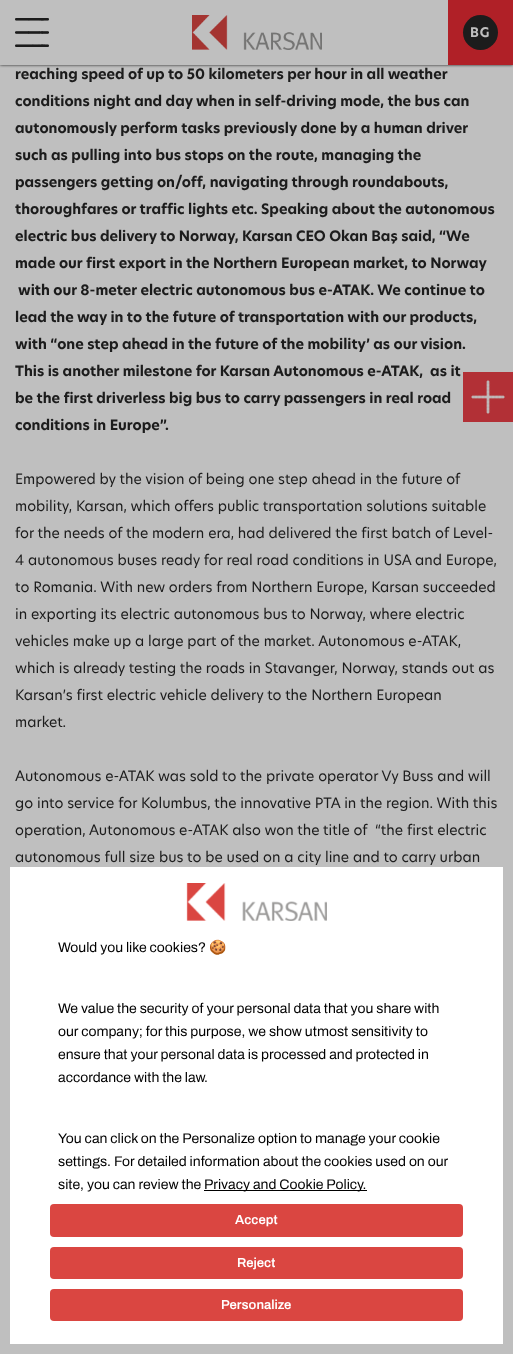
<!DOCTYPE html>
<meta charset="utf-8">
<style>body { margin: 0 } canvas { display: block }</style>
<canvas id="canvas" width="513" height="1354"></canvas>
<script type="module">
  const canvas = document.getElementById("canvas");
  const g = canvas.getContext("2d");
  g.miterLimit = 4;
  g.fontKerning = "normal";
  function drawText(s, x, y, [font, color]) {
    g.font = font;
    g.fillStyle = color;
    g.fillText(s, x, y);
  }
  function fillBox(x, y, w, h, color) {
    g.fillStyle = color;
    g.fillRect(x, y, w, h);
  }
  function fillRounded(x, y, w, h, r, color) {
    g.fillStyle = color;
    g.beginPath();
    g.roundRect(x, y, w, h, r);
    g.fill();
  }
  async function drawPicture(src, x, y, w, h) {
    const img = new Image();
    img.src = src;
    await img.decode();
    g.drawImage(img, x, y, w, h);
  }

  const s1 = ["bold 13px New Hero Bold", "#BFBFBF"];
  const s2 = ["bold 14px New Hero Bold", "#1C1C1C"];
  const s3 = ["14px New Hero", "#1C1C1C"];
  const s4 = ["14px Archivo", "#000000"];
  const s5 = ["14px Noto Color Emoji", "#000000"];
  const s6 = ["600 13px Archivo", "#FFFFFF"];

  fillBox(0, 0, 513, 1354, "#BFBFBF");
  g.fillStyle = "#1C1C1C";
  g.filter = "blur(1.5px)";
  g.beginPath();
  g.rect(0, 0, 513, 65);
  g.fill();
  g.filter = "none";
  fillBox(0, 0, 448, 65, "#BFBFBF");
  await drawPicture("pic1.png", 15, 18, 34, 29);
  await drawPicture("pic2.png", 192, 15, 130, 35);
  fillBox(448, 0, 65, 65, "#B02027");
  g.fillStyle = "#1C1C1C";
  g.beginPath();
  g.arc(480.5, 32.5, 17.5, 0, Math.PI * 2);
  g.fill();
  g.letterSpacing = "1px";
  drawText("BG", 470, 37, s1);
  g.letterSpacing = "0px";
  drawText("reaching speed of up to 50 kilometers per hour in all weather", 15, 79, s2);
  drawText("conditions night and day when in self-driving mode, the bus can", 15, 106, s2);
  drawText("autonomously perform tasks previously done by a human driver", 15, 133, s2);
  drawText("such as pulling into bus stops on the route, managing the", 15, 160, s2);
  drawText("passengers getting on/off, navigating through roundabouts,", 15, 187, s2);
  drawText("thoroughfares or traffic lights etc. Speaking about the autonomous", 15, 214, s2);
  drawText("electric bus delivery to Norway, Karsan CEO Okan Baş said, “We", 15, 241, s2);
  drawText("made our first export in the Northern European market, to Norway", 15, 268, s2);
  drawText("with our 8-meter electric autonomous bus e-ATAK. We continue to", 18, 295, s2);
  drawText("lead the way in to the future of transportation with our products,", 15, 322, s2);
  drawText("with “one step ahead in the future of the mobility’ as our vision.", 15, 349, s2);
  drawText("This is another milestone for Karsan Autonomous e-ATAK,  as it", 15, 376, s2);
  drawText("be the first driverless big bus to carry passengers in real road", 15, 403, s2);
  drawText("conditions in Europe”.", 15, 430, s2);
  drawText("Empowered by the vision of being one step ahead in the future of", 15, 484, s3);
  drawText("mobility, Karsan, which offers public transportation solutions suitable", 15, 511, s3);
  drawText("for the needs of the modern era, had delivered the first batch of Level-", 15, 538, s3);
  drawText("4 autonomous buses ready for real road conditions in USA and Europe,", 15, 565, s3);
  drawText("to Romania. With new orders from Northern Europe, Karsan succeeded", 15, 592, s3);
  drawText("in exporting its electric autonomous bus to Norway, where electric", 15, 619, s3);
  drawText("vehicles make up a large part of the market. Autonomous e-ATAK,", 15, 646, s3);
  drawText("which is already testing the roads in Stavanger, Norway, stands out as", 15, 673, s3);
  drawText("Karsan’s first electric vehicle delivery to the Northern European", 15, 700, s3);
  drawText("market.", 15, 727, s3);
  drawText("Autonomous e-ATAK was sold to the private operator Vy Buss and will", 15, 781, s3);
  drawText("go into service for Kolumbus, the innovative PTA in the region. With this", 15, 808, s3);
  drawText("operation, Autonomous e-ATAK also won the title of  “the first electric", 15, 835, s3);
  drawText("autonomous full size bus to be used on a city line and to carry urban", 15, 862, s3);
  fillBox(463, 372, 50, 50, "rgba(176, 32, 39, 0.9)");
  await drawPicture("pic3.png", 471, 380, 34, 34);
  fillBox(10, 867, 493, 477, "#FFFFFF");
  await drawPicture("pic4.png", 186, 883, 141, 38);
  drawText("Would you like cookies?", 58, 952, s4);
  drawText("🍪", 209, 952, s5);
  drawText("We value the security of your personal data that you share with", 58, 1013, s4);
  drawText("our company; for this purpose, we show utmost sensitivity to", 58, 1036, s4);
  drawText("ensure that your personal data is processed and protected in", 58, 1059, s4);
  drawText("accordance with the law.", 58, 1082, s4);
  drawText("You can click on the Personalize option to manage your cookie", 58, 1143, s4);
  drawText("settings. For detailed information about the cookies used on our", 58, 1166, s4);
  drawText("site, you can review the", 58, 1189, s4);
  fillBox(204, 1190, 163, 1, "#000000");
  drawText("Privacy and Cookie Policy.", 204, 1189, s4);
  fillRounded(50, 1204, 413, 33, 4, "#DA4641");
  drawText("Accept", 235, 1224, s6);
  fillRounded(50, 1247, 413, 32, 4, "#DA4641");
  drawText("Reject", 237, 1267, s6);
  fillRounded(50, 1289, 413, 32, 4, "#DA4641");
  drawText("Personalize", 221, 1309, s6);
</script>
